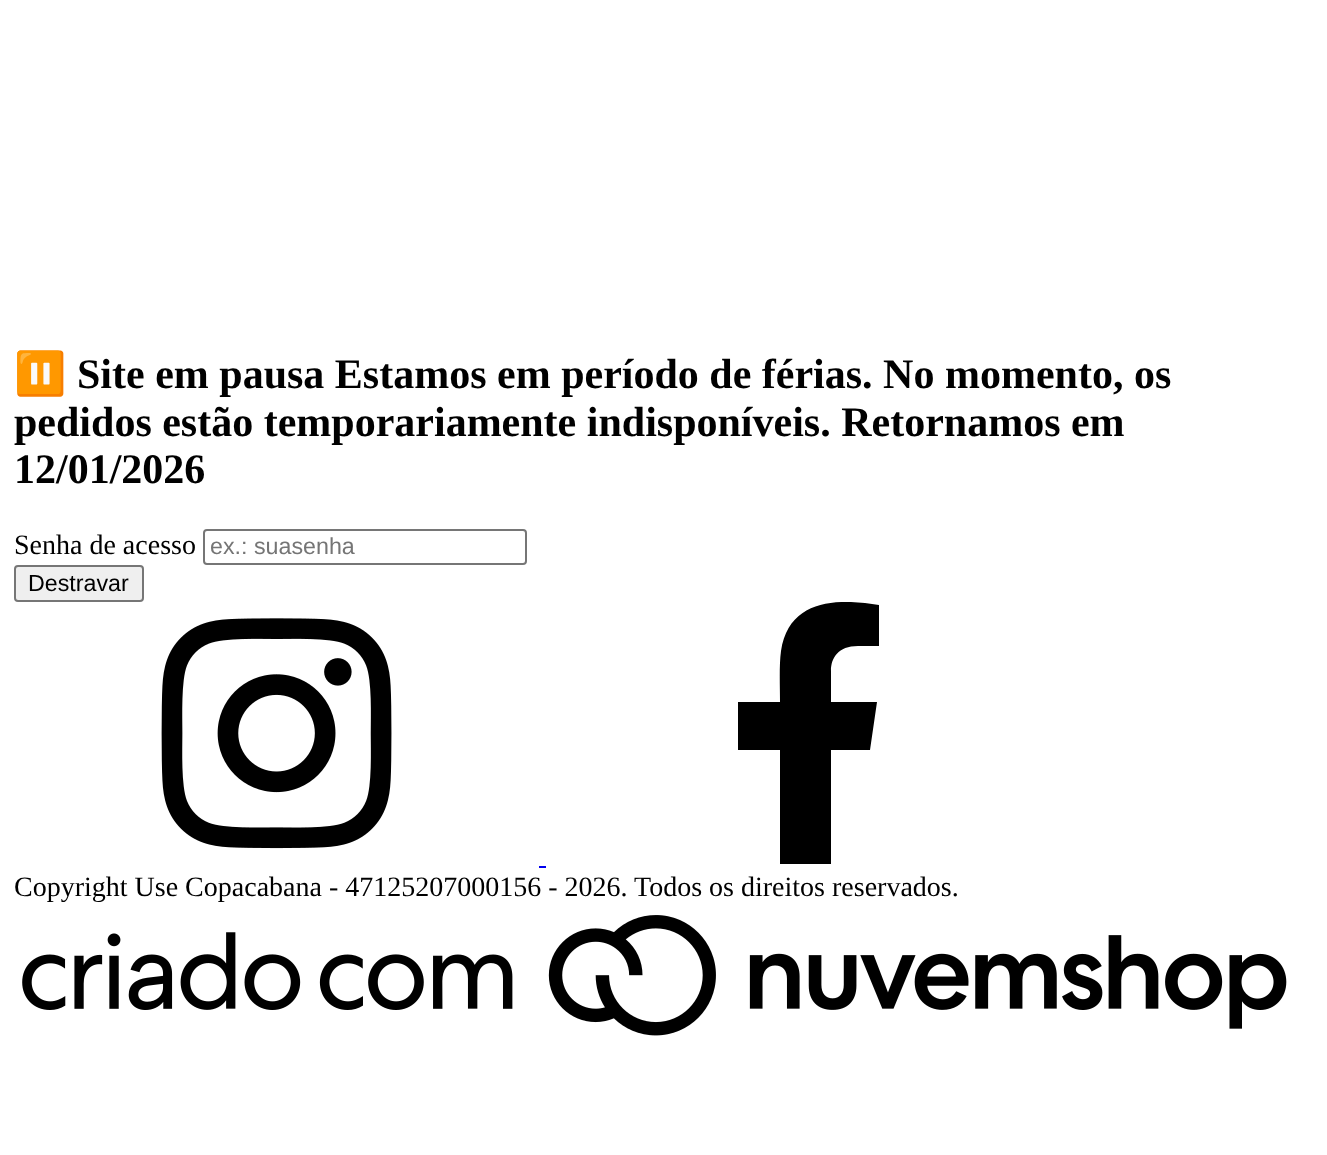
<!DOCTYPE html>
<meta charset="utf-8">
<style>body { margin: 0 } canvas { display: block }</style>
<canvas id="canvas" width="1327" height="1155"></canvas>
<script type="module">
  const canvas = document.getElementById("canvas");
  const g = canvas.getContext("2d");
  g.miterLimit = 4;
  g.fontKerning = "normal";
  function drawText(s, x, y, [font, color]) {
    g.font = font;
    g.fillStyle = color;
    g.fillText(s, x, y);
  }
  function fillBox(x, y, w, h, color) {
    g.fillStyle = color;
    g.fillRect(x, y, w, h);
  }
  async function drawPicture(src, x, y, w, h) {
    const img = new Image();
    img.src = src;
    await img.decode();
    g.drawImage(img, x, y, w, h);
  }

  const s1 = ["bold 42px Noto Color Emoji", "#000000"];
  const s2 = ["bold 42px Liberation Serif", "#000000"];
  const s3 = ["28px Liberation Serif", "#000000"];
  const s4 = ["23.25px Liberation Sans", "#757575"];
  const s5 = ["23.25px Liberation Sans", "#000000"];

  fillBox(0, 0, 1327, 1155, "#FFFFFF");
  drawText("⏸️", 14, 388, s1);
  drawText("Site em pausa Estamos em período de férias. No momento, os", 77, 388, s2);
  drawText("pedidos estão temporariamente indisponíveis. Retornamos em", 14, 436, s2);
  drawText("12/01/2026", 14, 483, s2);
  drawText("Senha de acesso", 14, 554, s3);
  g.beginPath();
  g.roundRect(204, 530, 322, 34, 3);
  g.strokeStyle = "#767676";
  g.lineWidth = 2;
  g.stroke();
  drawText("ex.: suasenha", 210, 554, s4);
  g.fillStyle = "#EFEFEF";
  g.beginPath();
  g.roundRect(15, 566, 128, 35, 3);
  g.fill();
  g.stroke();
  drawText("Destravar", 28, 591, s5);
  await drawPicture("pic1.png", 161, 618, 231, 231);
  g.save();
  g.beginPath();
  g.rect(546, 602, 525, 263);
  g.clip();
  g.beginPath();
  g.moveTo(870, 750);
  g.lineTo(877, 702);
  g.lineTo(831, 702);
  g.lineTo(831, 671);
  g.bezierCurveTo(831, 658, 838, 646, 858, 646);
  g.lineTo(879, 646);
  g.lineTo(879, 605);
  g.bezierCurveTo(837, 598, 789, 599, 781, 651);
  g.bezierCurveTo(779, 666, 780, 686, 780, 702);
  g.lineTo(738, 702);
  g.lineTo(738, 750);
  g.lineTo(780, 750);
  g.lineTo(780, 864);
  g.lineTo(831, 864);
  g.lineTo(831, 750);
  g.closePath();
  g.fill();
  g.restore();
  fillBox(539, 866, 7, 2, "#0000EE");
  drawText("Copyright Use Copacabana - 47125207000156 - 2026. Todos os direitos reservados.", 14, 896, s3);
  await drawPicture("pic2.png", 22, 915, 1265, 121);
</script>
